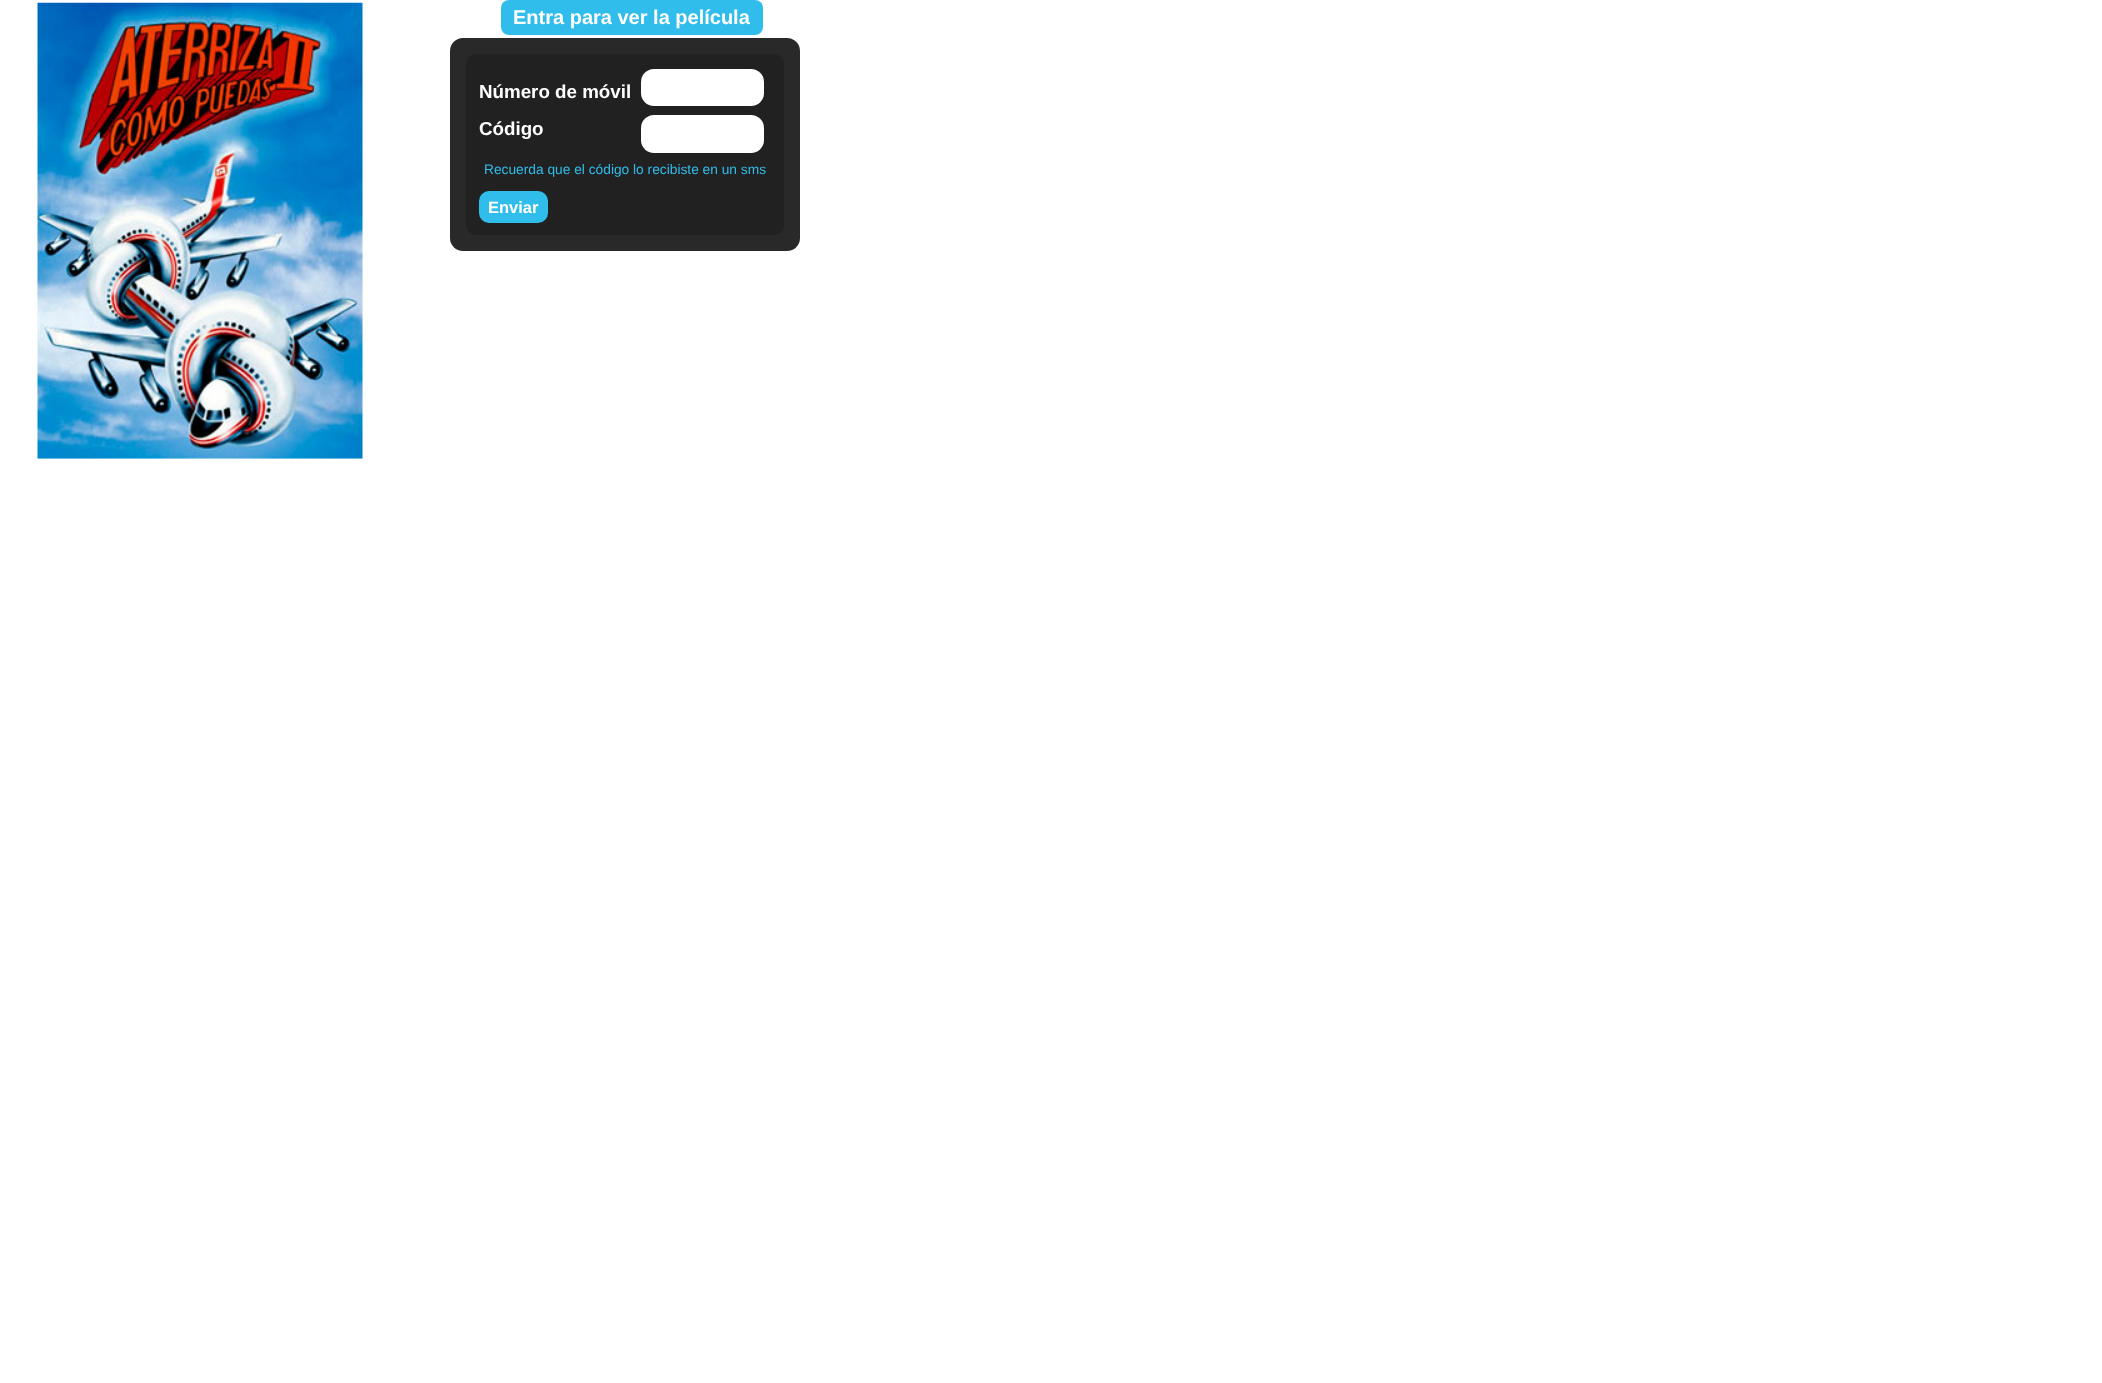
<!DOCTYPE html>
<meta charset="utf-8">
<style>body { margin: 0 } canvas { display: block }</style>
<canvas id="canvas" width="2102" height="1383"></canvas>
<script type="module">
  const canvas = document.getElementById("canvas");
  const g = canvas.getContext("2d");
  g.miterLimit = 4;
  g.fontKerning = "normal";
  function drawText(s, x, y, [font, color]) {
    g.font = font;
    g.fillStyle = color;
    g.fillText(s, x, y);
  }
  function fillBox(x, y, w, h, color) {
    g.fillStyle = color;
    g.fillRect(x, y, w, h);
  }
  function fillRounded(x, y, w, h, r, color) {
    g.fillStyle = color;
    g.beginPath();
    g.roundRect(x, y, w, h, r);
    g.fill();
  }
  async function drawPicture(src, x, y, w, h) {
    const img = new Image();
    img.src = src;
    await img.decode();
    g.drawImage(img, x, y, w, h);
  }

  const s1 = ["bold 20px Liberation Sans", "#FFFFFF"];
  const s2 = ["bold 18.75px Liberation Sans", "#FFFFFF"];
  const s3 = ["13.75px Liberation Sans", "#31BDEB"];
  const s4 = ["bold 16.5px Liberation Sans", "#FFFFFF"];

  fillBox(0, 0, 2102, 1383, "#FFFFFF");
  await drawPicture("pic1.png", 37, 2, 326, 457);
  fillRounded(450, 38, 350, 213, 13, "#292929");
  fillRounded(501, 0, 262, 35, 8, "#31BDEB");
  drawText("Entra para ver la película", 513, 24, s1);
  fillRounded(466, 54, 318, 181, 10, "#212121");
  drawText("Número de móvil", 479, 98, s2);
  fillRounded(641, 69, 123, 37, 13, "#FFFFFF");
  drawText("Código", 479, 135, s2);
  fillRounded(641, 115, 123, 38, 13, "#FFFFFF");
  drawText("Recuerda que el código lo recibiste en un sms", 484, 174, s3);
  fillRounded(479, 191, 69, 32, 10, "#31BDEB");
  drawText("Enviar", 488, 213, s4);
</script>
